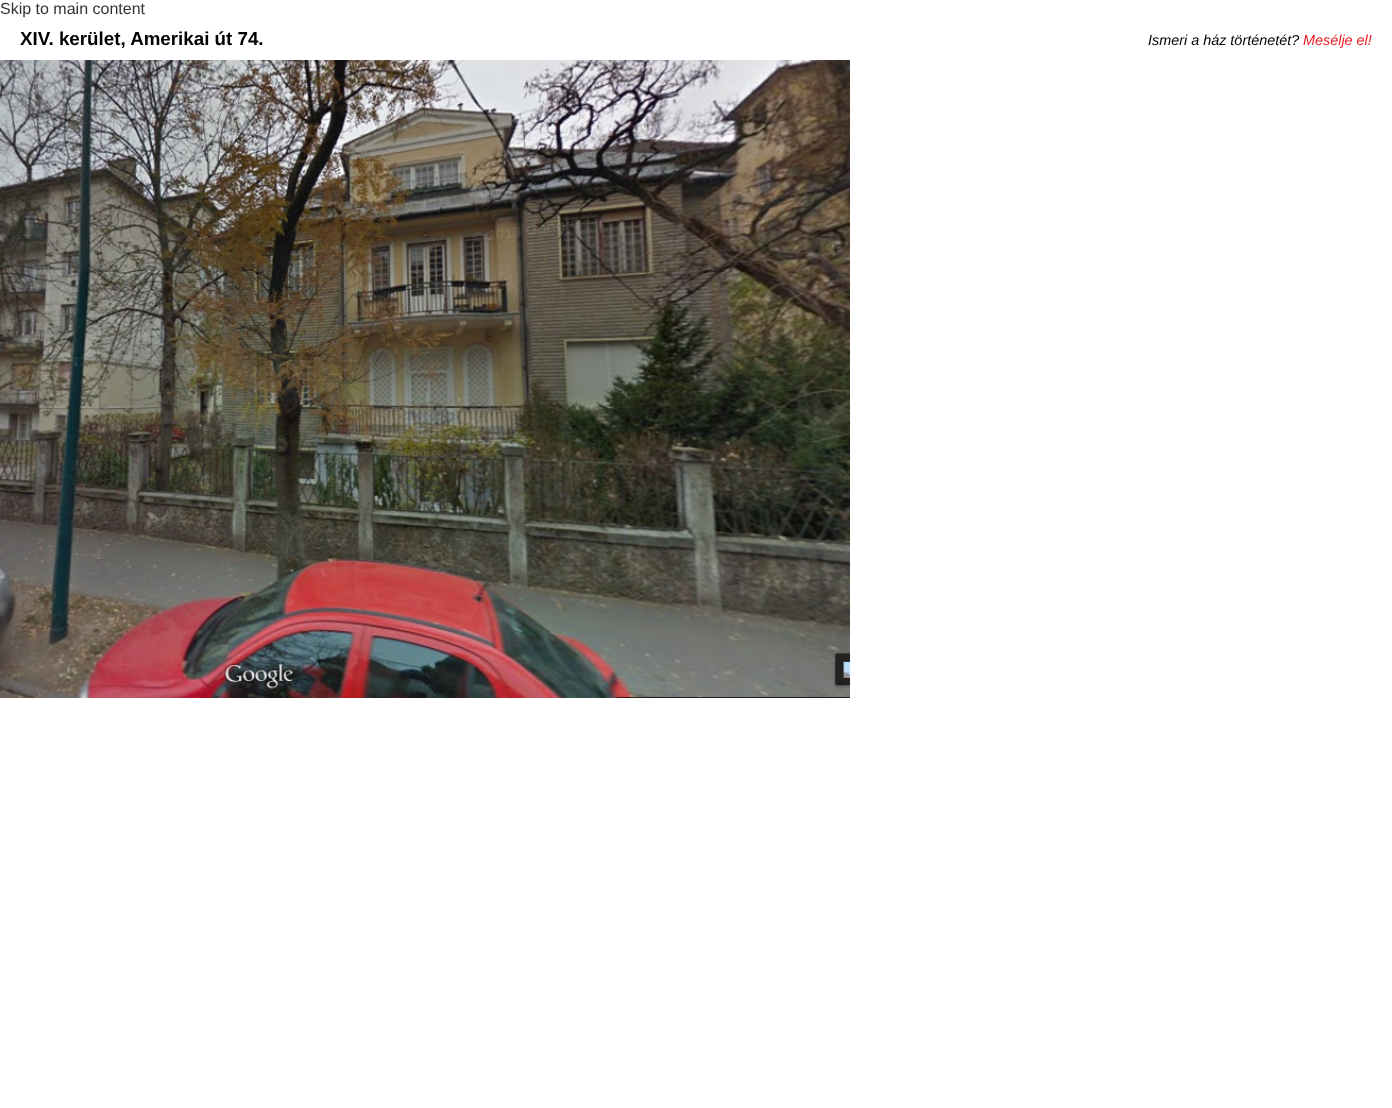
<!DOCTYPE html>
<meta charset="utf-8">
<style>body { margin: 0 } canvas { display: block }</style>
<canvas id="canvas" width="1392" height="1108"></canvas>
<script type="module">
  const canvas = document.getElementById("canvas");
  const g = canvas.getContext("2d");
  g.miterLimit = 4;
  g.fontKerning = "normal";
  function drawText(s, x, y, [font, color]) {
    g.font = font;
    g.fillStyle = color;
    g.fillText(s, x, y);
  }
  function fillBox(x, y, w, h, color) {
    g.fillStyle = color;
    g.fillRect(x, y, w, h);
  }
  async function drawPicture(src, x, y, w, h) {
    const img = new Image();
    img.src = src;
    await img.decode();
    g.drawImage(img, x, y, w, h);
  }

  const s1 = ["16px Liberation Sans", "#333333"];
  const s2 = ["bold 18.75px Liberation Sans", "#000000"];
  const s3 = ["italic 14.4px Liberation Sans", "#000000"];
  const s4 = ["italic 14.4px Liberation Sans", "#ED1C24"];

  fillBox(0, 0, 1392, 1108, "#FFFFFF");
  drawText("Skip to main content", 0, 14, s1);
  await drawPicture("pic1.png", 0, 60, 850, 638);
  drawText("XIV. kerület, Amerikai út 74.", 20, 45, s2);
  drawText("Ismeri a ház történetét?", 1148, 45, s3);
  drawText("Mesélje el!", 1303, 45, s4);
</script>
